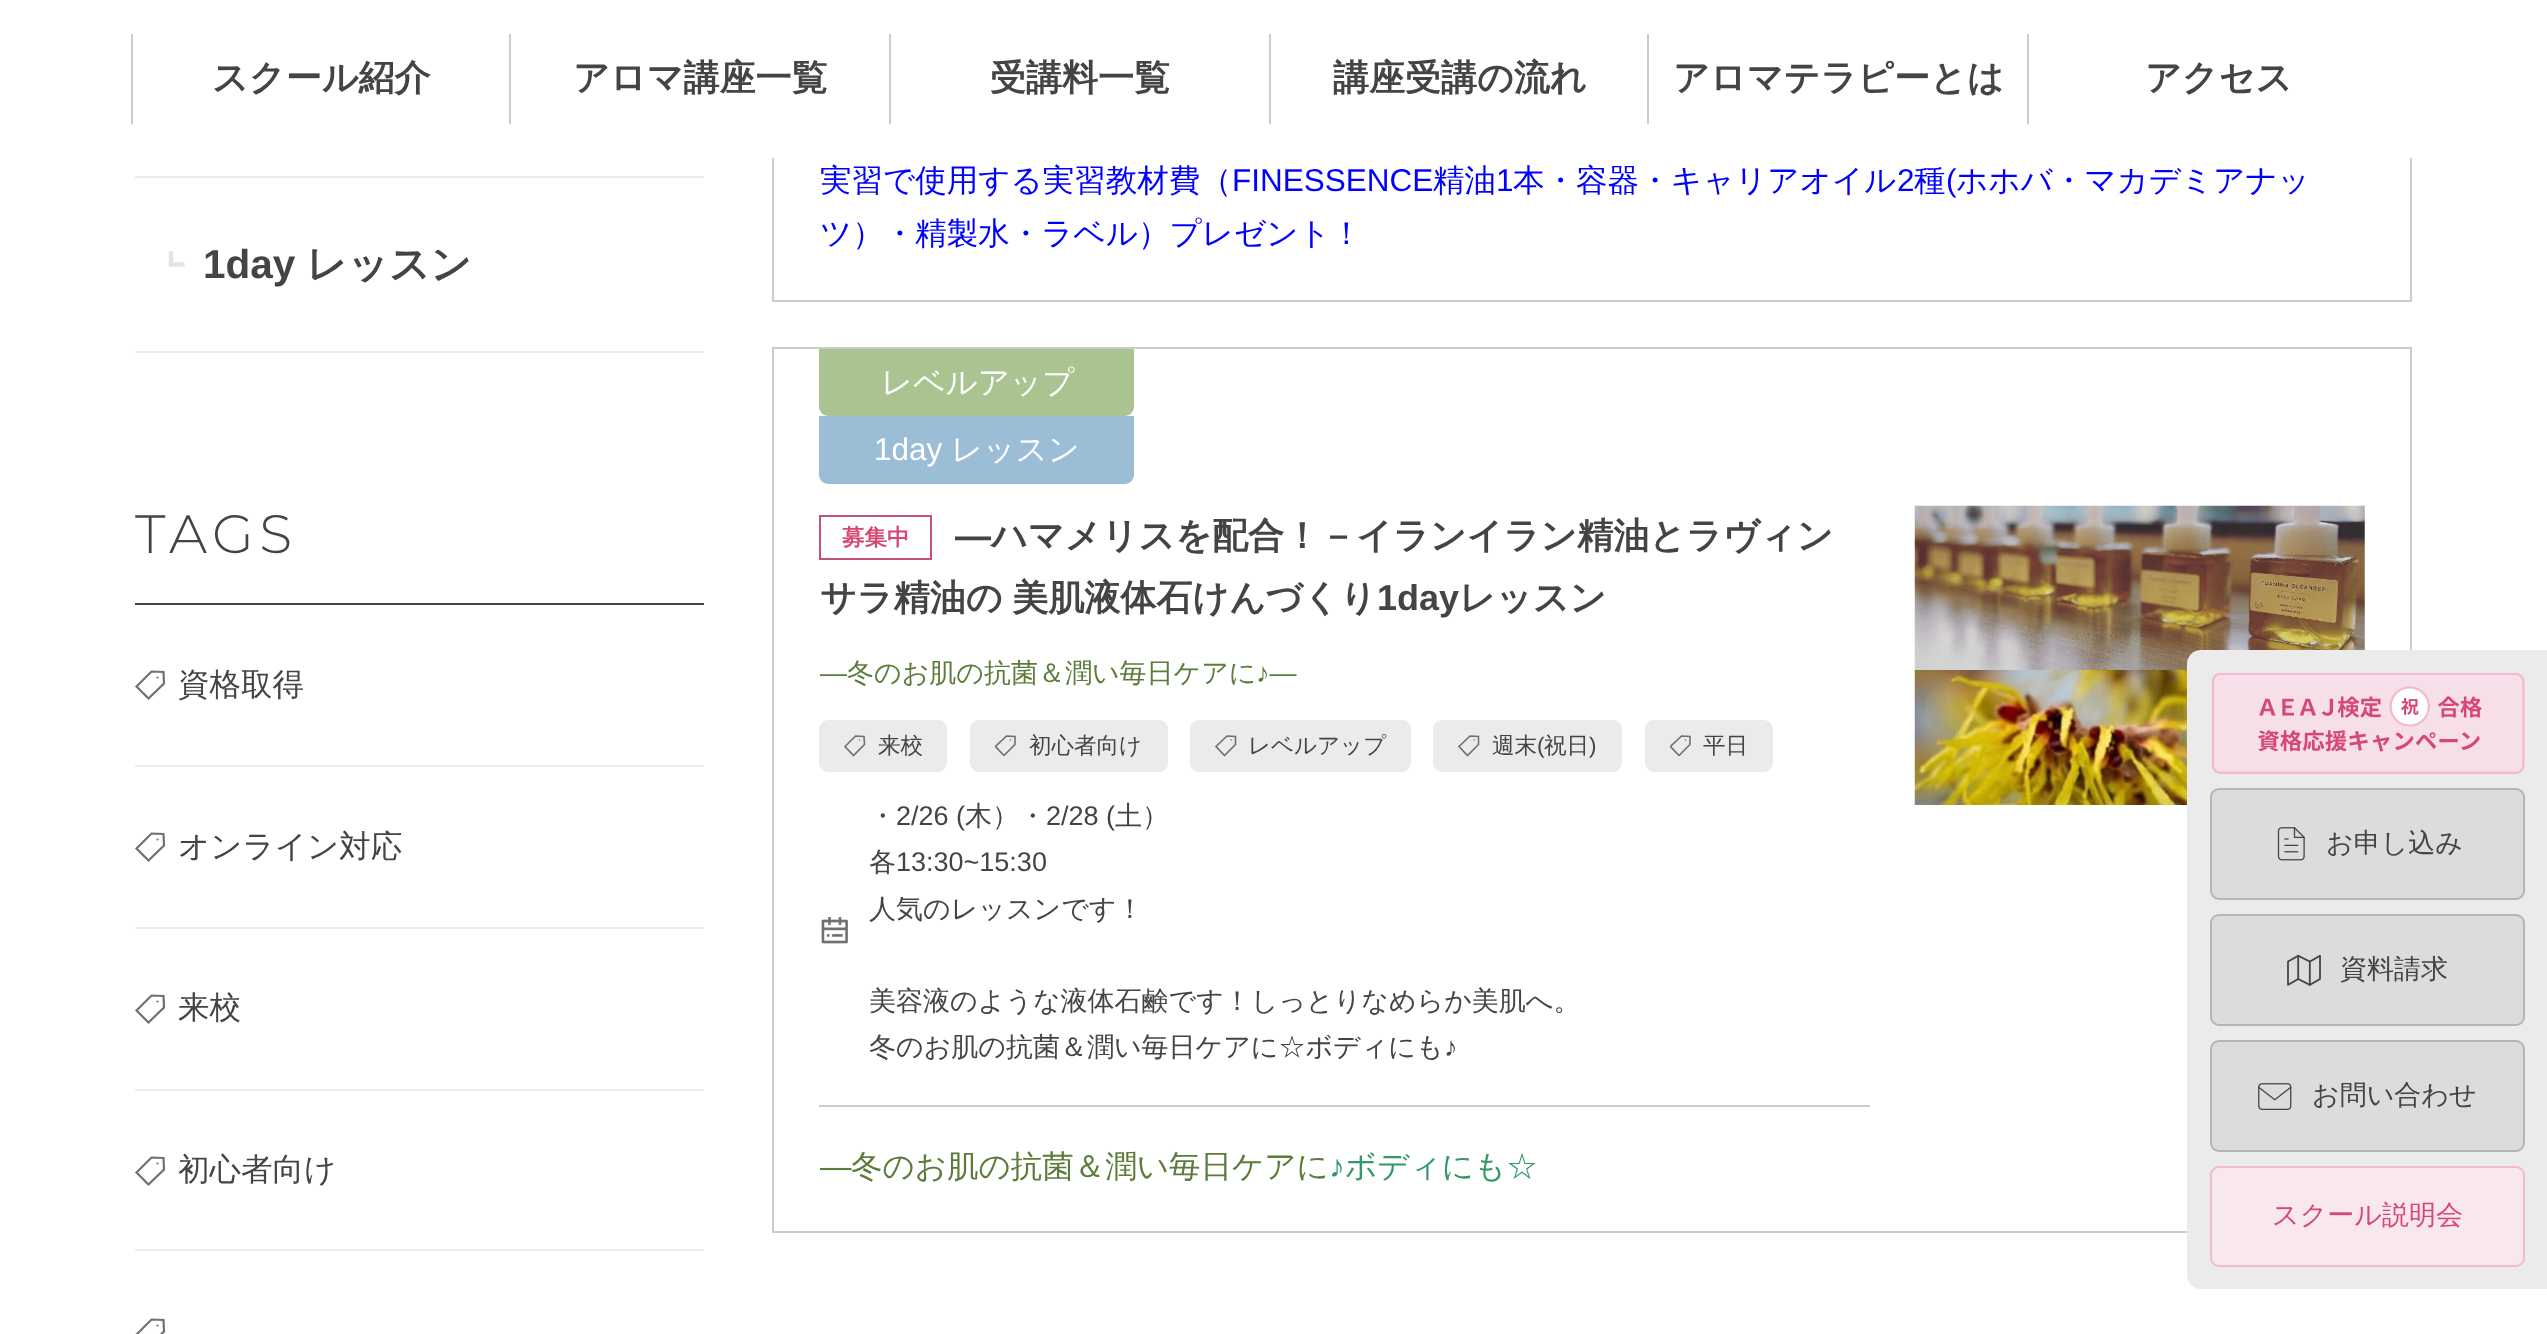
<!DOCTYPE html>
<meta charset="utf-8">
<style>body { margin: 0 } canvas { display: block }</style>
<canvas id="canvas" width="2547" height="1334"></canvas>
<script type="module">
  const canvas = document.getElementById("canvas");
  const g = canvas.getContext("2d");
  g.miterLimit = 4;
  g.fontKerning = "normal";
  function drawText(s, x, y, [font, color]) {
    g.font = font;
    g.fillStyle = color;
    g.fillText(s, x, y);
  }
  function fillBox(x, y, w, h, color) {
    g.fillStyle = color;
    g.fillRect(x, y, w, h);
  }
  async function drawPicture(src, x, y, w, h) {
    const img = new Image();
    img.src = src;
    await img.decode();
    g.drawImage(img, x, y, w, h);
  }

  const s1 = ["bold 36px WenQuanYi Zen Hei", "#444444"];
  const s2 = ["500 27px WenQuanYi Zen Hei", "#444444"];
  const s3 = ["500 27px WenQuanYi Zen Hei", "#D64773"];
  const s4 = ["bold 40.5px Liberation Sans", "#444444"];
  const s5 = ["bold 40.5px WenQuanYi Zen Hei", "#444444"];
  const s6 = ["300 54px Montserrat", "#444444"];
  const s7 = ["500 31.5px WenQuanYi Zen Hei", "#444444"];
  const s8 = ["500 31.5px WenQuanYi Zen Hei", "#0000FF"];
  const s9 = ["31.5px Liberation Sans", "#0000FF"];
  const s10 = ["500 31.5px WenQuanYi Zen Hei", "#FFFFFF"];
  const s11 = ["31.5px Liberation Sans", "#FFFFFF"];
  const s12 = ["bold 22.5px WenQuanYi Zen Hei", "#D64773"];
  const s13 = ["bold 36px Liberation Sans", "#444444"];
  const s14 = ["27px Liberation Sans", "#5B7C3A"];
  const s15 = ["500 27px WenQuanYi Zen Hei", "#5B7C3A"];
  const s16 = ["500 22.5px WenQuanYi Zen Hei", "#444444"];
  const s17 = ["22.5px Liberation Sans", "#444444"];
  const s18 = ["27px Liberation Sans", "#444444"];
  const s19 = ["31.5px Liberation Sans", "#5B7C3A"];
  const s20 = ["500 31.5px WenQuanYi Zen Hei", "#5B7C3A"];
  const s21 = ["31.5px Liberation Sans", "#339966"];
  const s22 = ["500 31.5px WenQuanYi Zen Hei", "#339966"];

  fillBox(0, 0, 2547, 1334, "#FFFFFF");
  g.strokeStyle = "#CCCCCC";
  g.lineWidth = 2;
  g.strokeRect(773, -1, 1638, 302);
  fillBox(772, 0, 1640, 158, "#FFFFFF");
  fillBox(131, 34, 2, 90, "#CCCCCC");
  drawText("スクール紹介", 212, 90, s1);
  fillBox(509, 34, 2, 90, "#CCCCCC");
  drawText("アロマ講座一覧", 573, 90, s1);
  fillBox(889, 34, 2, 90, "#CCCCCC");
  drawText("受講料一覧", 990, 90, s1);
  fillBox(1269, 34, 2, 90, "#CCCCCC");
  drawText("講座受講の流れ", 1333, 90, s1);
  fillBox(1647, 34, 2, 90, "#CCCCCC");
  drawText("アロマテラピーとは", 1673, 90, s1);
  fillBox(2027, 34, 2, 90, "#CCCCCC");
  drawText("アクセス", 2145, 90, s1);
  g.strokeRect(773, 348, 1638, 884);
  await drawPicture("pic6.png", 1914, 505, 451, 300);
  g.fillStyle = "#EBEBEB";
  g.beginPath();
  g.roundRect(2187, 650, 360, 639, [14, 0, 0, 14]);
  g.fill();
  await drawPicture("pic1.png", 2212, 673, 313, 101);
  g.fillStyle = "#DEDBDB";
  g.beginPath();
  g.roundRect(2211, 789, 313, 110, 8);
  g.fill();
  g.strokeStyle = "#B5B5B5";
  g.stroke();
  await drawPicture("pic2.png", 2277, 827, 28, 34);
  drawText("お申し込み", 2326, 852, s2);
  g.fillStyle = "#DEDBDB";
  g.beginPath();
  g.roundRect(2211, 915, 313, 110, 8);
  g.fill();
  g.stroke();
  await drawPicture("pic3.png", 2287, 954, 34, 32);
  drawText("資料請求", 2340, 978, s2);
  g.fillStyle = "#DEDBDB";
  g.beginPath();
  g.roundRect(2211, 1041, 313, 110, 8);
  g.fill();
  g.stroke();
  await drawPicture("pic4.png", 2258, 1083, 34, 27);
  drawText("お問い合わせ", 2312, 1104, s2);
  g.fillStyle = "#F8E7EE";
  g.beginPath();
  g.roundRect(2211, 1167, 313, 99, 8);
  g.fill();
  g.strokeStyle = "#F0BAD1";
  g.stroke();
  drawText("スクール説明会", 2272, 1224, s3);
  fillBox(135, 176, 569, 2, "#EBEBEB");
  g.beginPath();
  g.moveTo(171, 251);
  g.lineTo(171, 264.5);
  g.lineTo(184.5, 264.5);
  g.strokeStyle = "#E3E3E3";
  g.lineWidth = 4.5;
  g.stroke();
  fillBox(135, 351, 569, 2, "#EBEBEB");
  drawText("1day", 203, 278, s4);
  drawText("レッスン", 306, 278, s5);
  fillBox(135, 603, 569, 2, "#444444");
  g.letterSpacing = "5.5px";
  drawText("TAGS", 135, 553, s6);
  fillBox(135, 765, 569, 2, "#EBEBEB");
  g.beginPath();
  g.moveTo(157.5, 677.5);
  g.lineTo(157.5, 677.5);
  g.strokeStyle = "#707070";
  g.lineWidth = 2.2;
  g.lineCap = "round";
  g.lineJoin = "round";
  g.stroke();
  g.beginPath();
  g.moveTo(136.5, 686.5);
  g.lineTo(151.5, 671.5);
  g.lineTo(163.5, 672);
  g.lineTo(164, 683.5);
  g.lineTo(148.5, 698.5);
  g.closePath();
  g.lineCap = "butt";
  g.lineJoin = "miter";
  g.stroke();
  g.letterSpacing = "0px";
  drawText("資格取得", 178, 695, s7);
  fillBox(135, 927, 569, 2, "#EBEBEB");
  g.beginPath();
  g.moveTo(157.5, 839.5);
  g.lineTo(157.5, 839.5);
  g.lineCap = "round";
  g.lineJoin = "round";
  g.stroke();
  g.beginPath();
  g.moveTo(136.5, 848.5);
  g.lineTo(151.5, 833.5);
  g.lineTo(163.5, 834);
  g.lineTo(164, 845.5);
  g.lineTo(148.5, 860.5);
  g.closePath();
  g.lineCap = "butt";
  g.lineJoin = "miter";
  g.stroke();
  drawText("オンライン対応", 178, 857, s7);
  fillBox(135, 1089, 569, 2, "#EBEBEB");
  g.beginPath();
  g.moveTo(157.5, 1001.5);
  g.lineTo(157.5, 1001.5);
  g.lineCap = "round";
  g.lineJoin = "round";
  g.stroke();
  g.beginPath();
  g.moveTo(136.5, 1010.5);
  g.lineTo(151.5, 995.5);
  g.lineTo(163.5, 996);
  g.lineTo(164, 1007.5);
  g.lineTo(148.5, 1022.5);
  g.closePath();
  g.lineCap = "butt";
  g.lineJoin = "miter";
  g.stroke();
  drawText("来校", 178, 1018, s7);
  fillBox(135, 1249, 569, 2, "#EBEBEB");
  g.beginPath();
  g.moveTo(157.5, 1163.5);
  g.lineTo(157.5, 1163.5);
  g.lineCap = "round";
  g.lineJoin = "round";
  g.stroke();
  g.beginPath();
  g.moveTo(136.5, 1172.5);
  g.lineTo(151.5, 1157.5);
  g.lineTo(163.5, 1158);
  g.lineTo(164, 1169.5);
  g.lineTo(148.5, 1184.5);
  g.closePath();
  g.lineCap = "butt";
  g.lineJoin = "miter";
  g.stroke();
  drawText("初心者向け", 178, 1180, s7);
  g.beginPath();
  g.moveTo(157.5, 1325.5);
  g.lineTo(157.5, 1325.5);
  g.lineCap = "round";
  g.lineJoin = "round";
  g.stroke();
  g.beginPath();
  g.moveTo(136.5, 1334.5);
  g.lineTo(151.5, 1319.5);
  g.lineTo(163.5, 1320);
  g.lineTo(164, 1331.5);
  g.lineTo(148.5, 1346.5);
  g.closePath();
  g.lineCap = "butt";
  g.lineJoin = "miter";
  g.stroke();
  drawText("実習で使用する実習教材費（", 820, 191, s8);
  drawText("FINESSENCE", 1232, 191, s9);
  drawText("精油", 1433, 191, s8);
  drawText("1", 1496, 191, s9);
  drawText("本・容器・キャリアオイル", 1513, 191, s8);
  drawText("2", 1897, 191, s9);
  drawText("種", 1914, 191, s8);
  drawText("(", 1946, 191, s9);
  drawText("ホホバ・マカデミアナッ", 1956, 191, s8);
  drawText("ツ）・精製水・ラベル）プレゼント！", 820, 244, s8);
  g.fillStyle = "#AAC491";
  g.beginPath();
  g.roundRect(819, 349, 315, 67, [0, 0, 9, 9]);
  g.fill();
  drawText("レベルアップ", 881, 393, s10);
  g.fillStyle = "#9BBDD5";
  g.beginPath();
  g.roundRect(819, 416, 315, 68, [0, 0, 9, 9]);
  g.fill();
  drawText("1day", 874, 460, s11);
  drawText("レッスン", 951, 460, s10);
  fillBox(819, 1105, 1051, 2, "#CCCCCC");
  g.strokeStyle = "#C65273";
  g.lineWidth = 2;
  g.strokeRect(820, 516, 111, 43);
  drawText("募集中", 842, 545, s12);
  drawText("―", 955, 548, s13);
  drawText("ハマメリスを配合！－イランイラン精油とラヴィン", 991, 548, s1);
  g.wordSpacing = "-1px";
  drawText("サラ精油の 美肌液体石けんづくり", 820, 610, s1);
  g.wordSpacing = "0px";
  drawText("1day", 1377, 610, s13);
  drawText("レッスン", 1459, 610, s1);
  drawText("―", 820, 682, s14);
  drawText("冬のお肌の抗菌＆潤い毎日ケアに", 847, 682, s15);
  drawText("♪―", 1256, 682, s14);
  g.fillStyle = "#EBEBEB";
  g.beginPath();
  g.roundRect(820, 721, 126, 50, 8);
  g.fill();
  g.strokeStyle = "#EBEBEB";
  g.stroke();
  g.beginPath();
  g.moveTo(859.5, 740);
  g.lineTo(859.5, 740);
  g.strokeStyle = "#707070";
  g.lineWidth = 1.6;
  g.lineCap = "round";
  g.lineJoin = "round";
  g.stroke();
  g.beginPath();
  g.moveTo(845, 746.5);
  g.lineTo(855.5, 736);
  g.lineTo(864, 736.5);
  g.lineTo(864.5, 744.5);
  g.lineTo(853.5, 755.5);
  g.closePath();
  g.lineCap = "butt";
  g.lineJoin = "miter";
  g.stroke();
  drawText("来校", 878, 753, s16);
  g.fillStyle = "#EBEBEB";
  g.beginPath();
  g.roundRect(971, 721, 196, 50, 8);
  g.fill();
  g.strokeStyle = "#EBEBEB";
  g.lineWidth = 2;
  g.stroke();
  g.beginPath();
  g.moveTo(1010.5, 740);
  g.lineTo(1010.5, 740);
  g.strokeStyle = "#707070";
  g.lineWidth = 1.6;
  g.lineCap = "round";
  g.lineJoin = "round";
  g.stroke();
  g.save();
  g.beginPath();
  g.rect(995, 734, 22, 22);
  g.clip();
  g.beginPath();
  g.moveTo(995.5, 746.5);
  g.lineTo(1006.5, 736);
  g.lineTo(1015, 736.5);
  g.lineTo(1015, 744.5);
  g.lineTo(1004, 755.5);
  g.closePath();
  g.lineCap = "butt";
  g.lineJoin = "miter";
  g.stroke();
  g.restore();
  drawText("初心者向け", 1029, 753, s16);
  g.fillStyle = "#EBEBEB";
  g.beginPath();
  g.roundRect(1191, 721, 219, 50, 8);
  g.fill();
  g.strokeStyle = "#EBEBEB";
  g.lineWidth = 2;
  g.lineJoin = "miter";
  g.stroke();
  g.beginPath();
  g.moveTo(1231, 740);
  g.lineTo(1231, 740);
  g.strokeStyle = "#707070";
  g.lineWidth = 1.6;
  g.lineJoin = "round";
  g.stroke();
  g.beginPath();
  g.moveTo(1216, 746.5);
  g.lineTo(1227, 736);
  g.lineTo(1235.5, 736.5);
  g.lineTo(1235.5, 744.5);
  g.lineTo(1224.5, 755.5);
  g.closePath();
  g.lineCap = "butt";
  g.lineJoin = "miter";
  g.stroke();
  drawText("レベルアップ", 1248, 753, s16);
  g.fillStyle = "#EBEBEB";
  g.beginPath();
  g.roundRect(1434, 721, 187, 50, 8);
  g.fill();
  g.strokeStyle = "#EBEBEB";
  g.lineWidth = 2;
  g.stroke();
  g.beginPath();
  g.moveTo(1474, 740);
  g.lineTo(1474, 740);
  g.strokeStyle = "#707070";
  g.lineWidth = 1.6;
  g.lineCap = "round";
  g.lineJoin = "round";
  g.stroke();
  g.beginPath();
  g.moveTo(1459, 746.5);
  g.lineTo(1470, 736);
  g.lineTo(1478.5, 736.5);
  g.lineTo(1478.5, 744.5);
  g.lineTo(1467.5, 755.5);
  g.closePath();
  g.lineCap = "butt";
  g.lineJoin = "miter";
  g.stroke();
  drawText("週末", 1492, 753, s16);
  drawText("(", 1537, 753, s17);
  drawText("祝日", 1544, 753, s16);
  drawText(")", 1589, 753, s17);
  g.fillStyle = "#EBEBEB";
  g.beginPath();
  g.roundRect(1646, 721, 126, 50, 8);
  g.fill();
  g.strokeStyle = "#EBEBEB";
  g.lineWidth = 2;
  g.stroke();
  g.beginPath();
  g.moveTo(1685.5, 740);
  g.lineTo(1685.5, 740);
  g.strokeStyle = "#707070";
  g.lineWidth = 1.6;
  g.lineCap = "round";
  g.lineJoin = "round";
  g.stroke();
  g.save();
  g.beginPath();
  g.rect(1670, 734, 22, 22);
  g.clip();
  g.beginPath();
  g.moveTo(1670.5, 746.5);
  g.lineTo(1681.5, 736);
  g.lineTo(1690, 736.5);
  g.lineTo(1690, 744.5);
  g.lineTo(1679, 755.5);
  g.closePath();
  g.lineCap = "butt";
  g.lineJoin = "miter";
  g.stroke();
  g.restore();
  drawText("平日", 1703, 753, s16);
  drawText("・", 869, 825, s2);
  drawText("2/26 (", 896, 825, s18);
  drawText("木）・", 965, 825, s2);
  drawText("2/28 (", 1046, 825, s18);
  drawText("土）", 1115, 825, s2);
  drawText("各", 869, 871, s2);
  drawText("13:30~15:30", 896, 871, s18);
  drawText("人気のレッスンです！", 869, 918, s2);
  await drawPicture("pic5.png", 821, 917, 27, 27);
  drawText("美容液のような液体石鹸です！しっとりなめらか美肌へ。", 869, 1010, s2);
  drawText("冬のお肌の抗菌＆潤い毎日ケアに☆ボディにも", 869, 1056, s2);
  drawText("♪", 1444, 1056, s18);
  drawText("―", 820, 1177, s19);
  drawText("冬のお肌の抗菌＆潤い毎日ケアに", 851, 1177, s20);
  drawText("♪", 1329, 1177, s21);
  drawText("ボディにも☆", 1345, 1177, s22);
</script>
